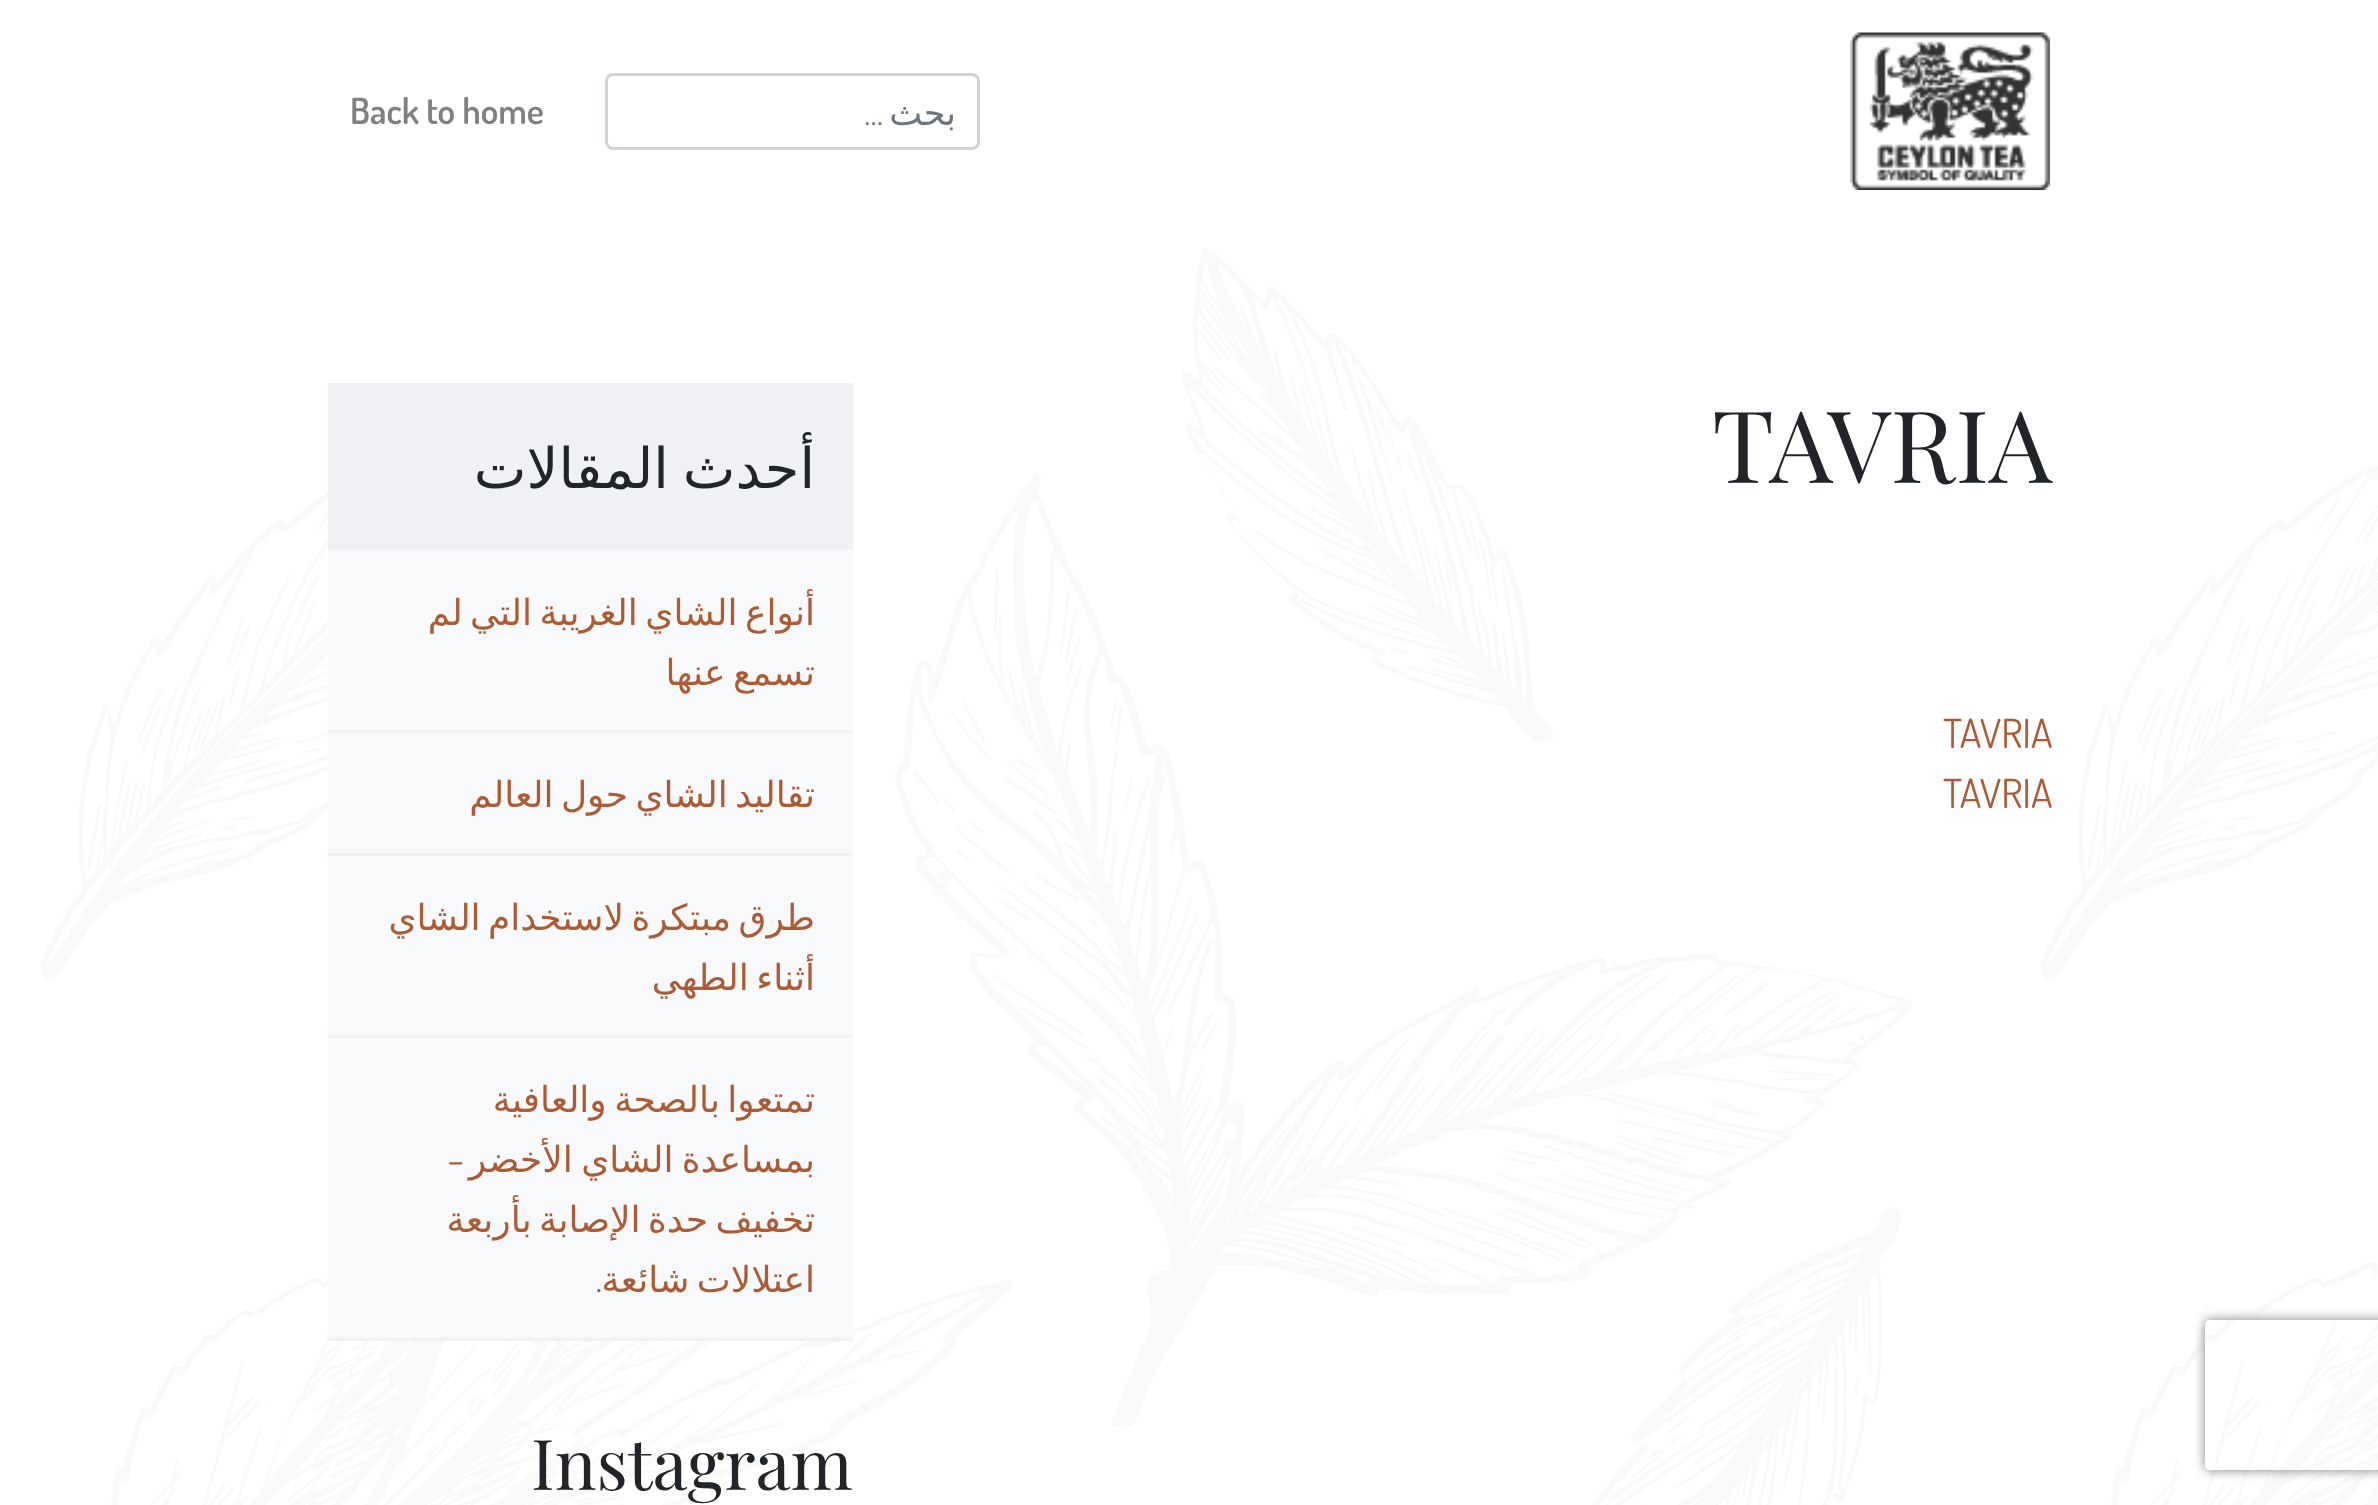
<!DOCTYPE html>
<meta charset="utf-8">
<style>body { margin: 0 } canvas { display: block }</style>
<canvas id="canvas" width="2378" height="1505"></canvas>
<script type="module">
  const canvas = document.getElementById("canvas");
  const g = canvas.getContext("2d");
  g.miterLimit = 4;
  g.fontKerning = "normal";
  function drawText(s, x, y, [font, color]) {
    g.font = font;
    g.fillStyle = color;
    g.fillText(s, x, y);
  }
  function fillBox(x, y, w, h, color) {
    g.fillStyle = color;
    g.fillRect(x, y, w, h);
  }
  async function drawPicture(src, x, y, w, h) {
    const img = new Image();
    img.src = src;
    await img.decode();
    g.drawImage(img, x, y, w, h);
  }

  const s1 = ["35px DejaVu Sans", "#6C757D"];
  const s2 = ["35px Dosis", "#6C757D"];
  const s3 = ["600 36px Dosis", "#808080"];
  const s4 = ["100px Playfair Display", "#212529"];
  const s5 = ["40px Dosis", "#AD5B34"];
  const s6 = ["56px DejaVu Sans", "#212529"];
  const s7 = ["36px DejaVu Sans", "#AD5B34"];
  const s8 = ["36px Dosis", "#AD5B34"];
  const s9 = ["70px Playfair Display", "#212529"];

  fillBox(0, 0, 2378, 1505, "#FFFFFF");
  await drawPicture("pic1.png", 1850, 32, 200, 158);
  g.beginPath();
  g.roundRect(606.5, 74.5, 372, 74, 6.5);
  g.strokeStyle = "#CED4DA";
  g.lineWidth = 3;
  g.stroke();
  g.direction = "rtl";
  drawText("بحث", 956, 125, s1);
  drawText("…", 883, 125, s2);
  g.direction = "ltr";
  drawText("Back to home", 350, 124, s3);
  await drawPicture("pic2.png", 41, 248, 2337, 1257);
  g.save();
  g.beginPath();
  g.moveTo(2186, 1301);
  g.lineTo(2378, 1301);
  g.lineTo(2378, 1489);
  g.lineTo(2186, 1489);
  g.closePath();
  g.moveTo(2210, 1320);
  g.lineTo(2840, 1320);
  g.bezierCurveTo(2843, 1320, 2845, 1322, 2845, 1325);
  g.lineTo(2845, 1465);
  g.bezierCurveTo(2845, 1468, 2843, 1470, 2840, 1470);
  g.lineTo(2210, 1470);
  g.bezierCurveTo(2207, 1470, 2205, 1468, 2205, 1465);
  g.lineTo(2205, 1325);
  g.bezierCurveTo(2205, 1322, 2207, 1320, 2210, 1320);
  g.closePath();
  g.clip("evenodd");
  g.filter = "blur(6px)";
  g.beginPath();
  g.roundRect(2205, 1320, 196, 150, 5);
  g.fill();
  g.filter = "none";
  g.restore();
  drawText("TAVRIA", 1712, 483, s4);
  drawText("TAVRIA", 1943, 748, s5);
  drawText("TAVRIA", 1943, 808, s5);
  fillBox(328, 550, 525, 788, "#F8F9FA");
  fillBox(328, 383, 525, 167, "#EFF1F4");
  g.wordSpacing = "-4px";
  g.direction = "rtl";
  drawText("أحدث المقالات", 815, 488, s6);
  fillBox(328, 730, 525, 3, "#EFF1F4");
  drawText("أنواع الشاي الغريبة التي لم", 815, 625, s7);
  drawText("تسمع عنها", 815, 685, s7);
  fillBox(328, 853, 525, 3, "#EFF1F4");
  drawText("تقاليد الشاي حول العالم", 815, 807, s7);
  fillBox(328, 1035, 525, 3, "#EFF1F4");
  drawText("طرق مبتكرة لاستخدام الشاي", 815, 930, s7);
  drawText("أثناء الطهي", 815, 990, s7);
  fillBox(328, 1338, 525, 3, "#EFF1F4");
  drawText("تمتعوا بالصحة والعافية", 815, 1112, s7);
  g.wordSpacing = "-3px";
  drawText("بمساعدة الشاي الأخضر", 815, 1172, s7);
  g.wordSpacing = "0px";
  drawText("–", 464, 1172, s8);
  g.wordSpacing = "-4px";
  drawText("تخفيف حدة الإصابة بأربعة", 815, 1232, s7);
  drawText("اعتلالات شائعة", 815, 1292, s7);
  g.wordSpacing = "0px";
  drawText(".", 602, 1292, s8);
  g.direction = "ltr";
  drawText("Instagram", 531, 1490, s9);
</script>
